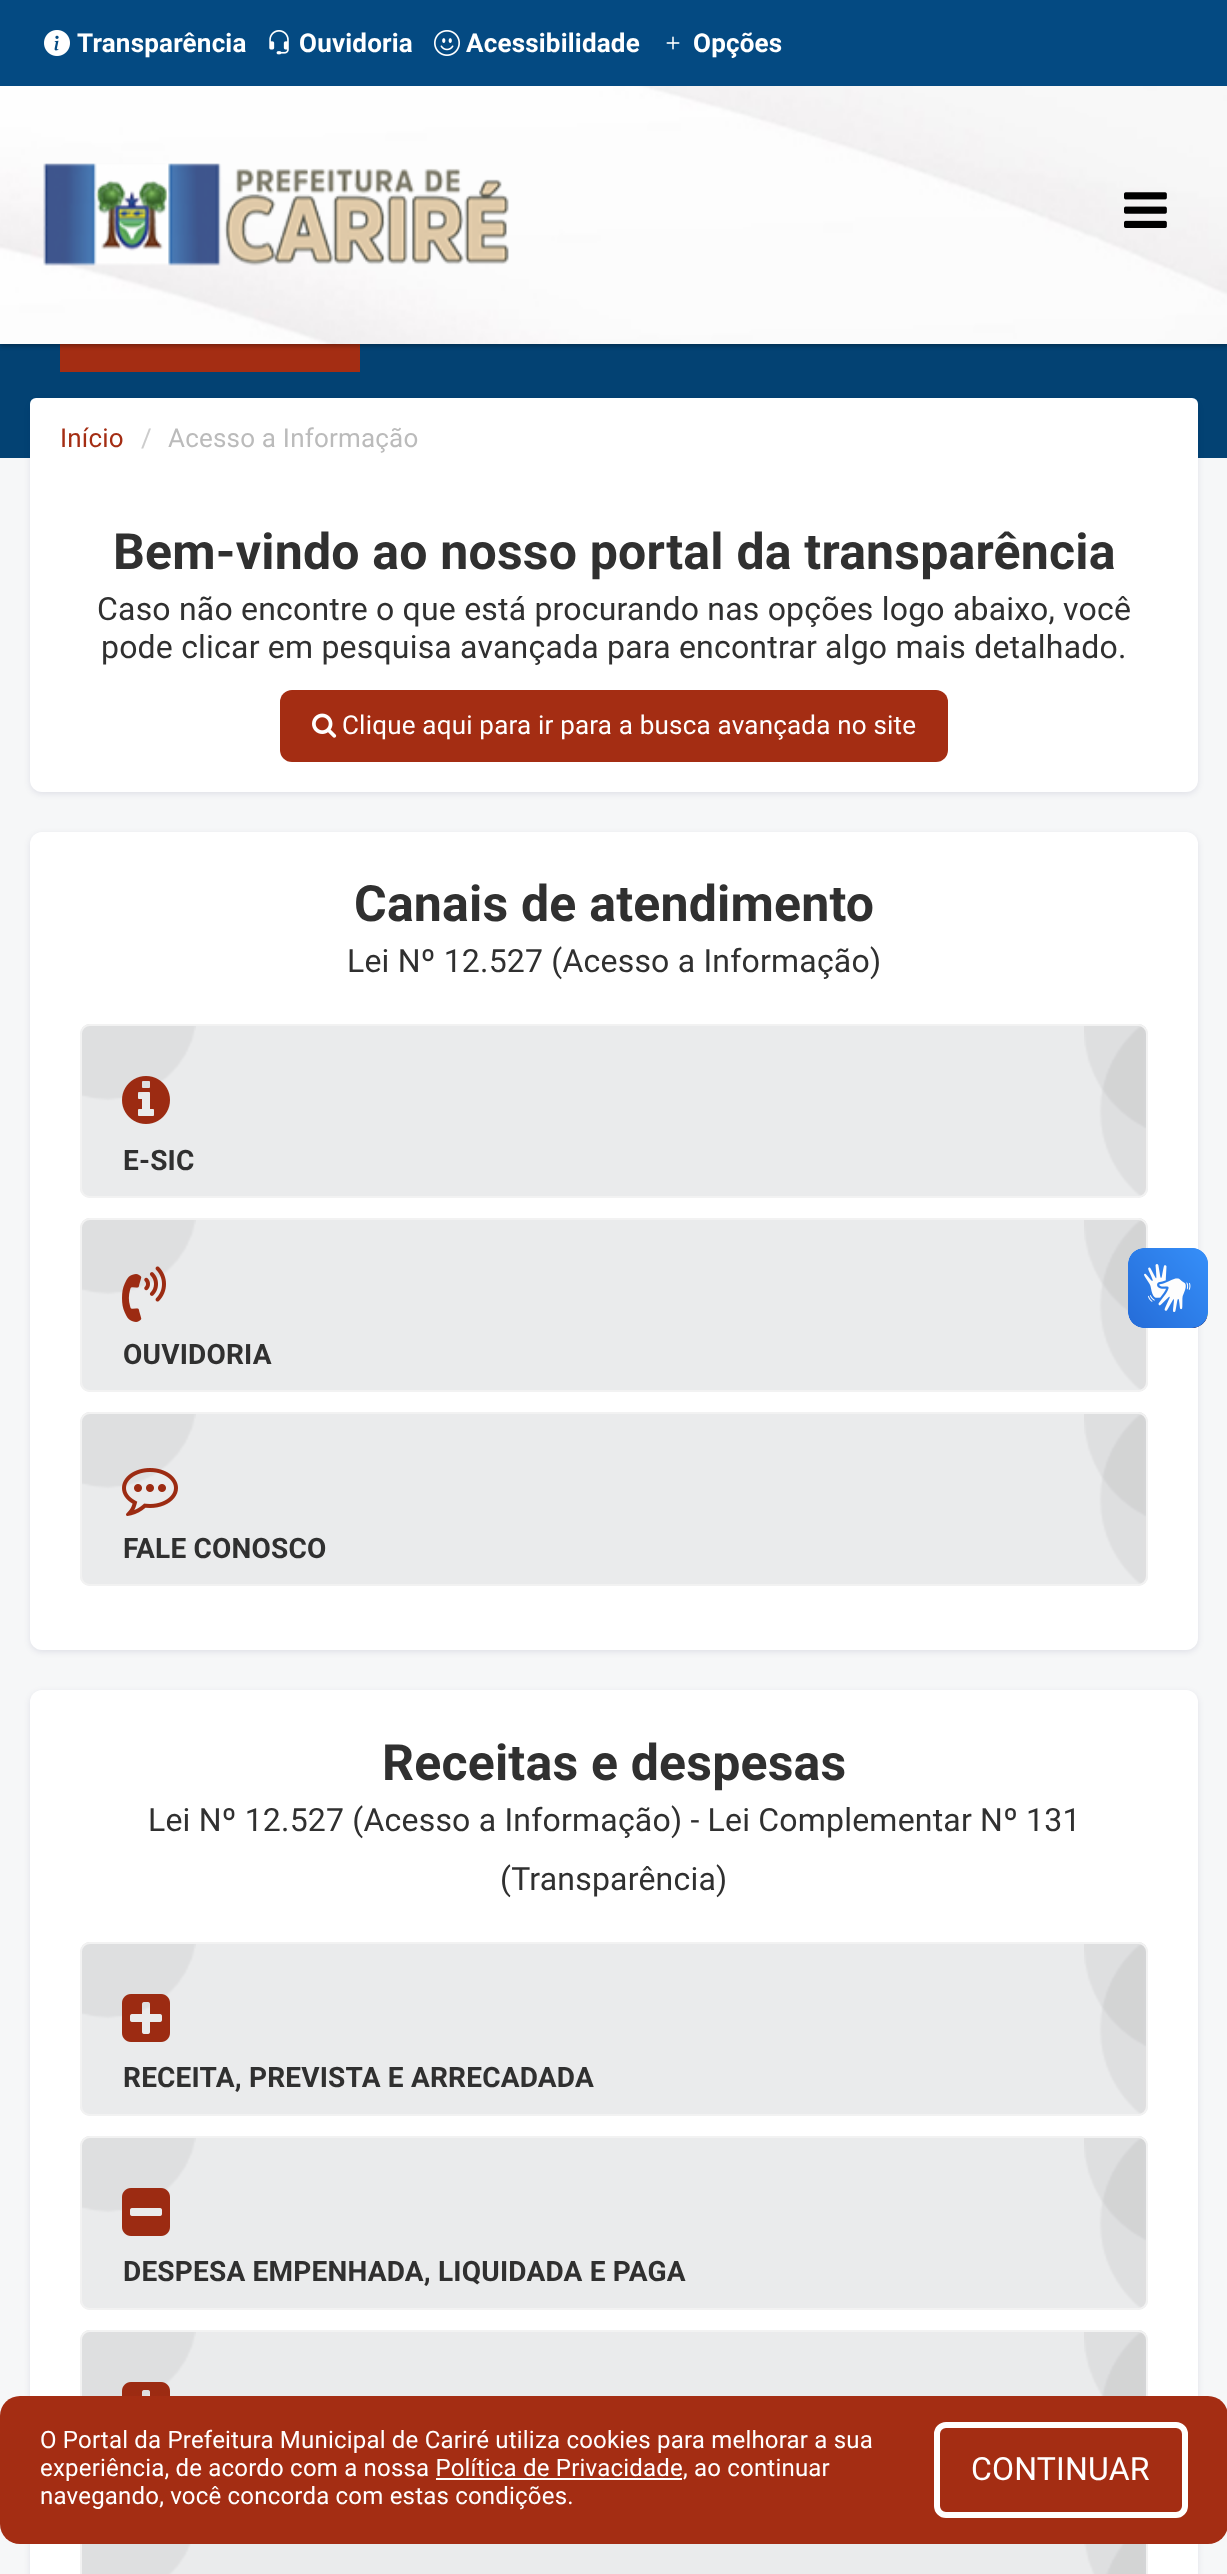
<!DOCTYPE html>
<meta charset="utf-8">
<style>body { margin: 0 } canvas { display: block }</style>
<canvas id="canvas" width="1227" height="2574"></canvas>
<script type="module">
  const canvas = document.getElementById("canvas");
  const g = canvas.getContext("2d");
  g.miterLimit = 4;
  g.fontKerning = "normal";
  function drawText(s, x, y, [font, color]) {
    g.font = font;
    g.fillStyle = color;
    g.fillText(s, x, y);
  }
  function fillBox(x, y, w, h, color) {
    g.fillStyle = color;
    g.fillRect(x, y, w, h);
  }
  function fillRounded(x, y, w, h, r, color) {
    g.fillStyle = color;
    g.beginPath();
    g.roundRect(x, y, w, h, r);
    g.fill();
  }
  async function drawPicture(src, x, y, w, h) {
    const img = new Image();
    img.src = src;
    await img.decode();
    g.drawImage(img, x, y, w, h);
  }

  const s1 = ["bold 26px Roboto", "#FFFFFF"];
  const s2 = ["26px Roboto", "#A42D13"];
  const s3 = ["26px Roboto", "#CCCCCC"];
  const s4 = ["26px Roboto", "#BBBBBB"];
  const s5 = ["bold 50px Roboto", "#303030"];
  const s6 = ["32px Roboto", "#303030"];
  const s7 = ["26px Roboto", "#FFFFFF"];
  const s8 = ["bold 28px Roboto", "#303030"];
  const s9 = ["24px Roboto", "#FFFFFF"];
  const s10 = ["32px Roboto", "#FFFFFF"];

  fillBox(0, 0, 1227, 2574, "#F6F7F8");
  fillBox(0, 344, 1227, 114, "#034273");
  fillBox(60, 344, 300, 28, "#A42D13");
  g.fillStyle = "rgba(0, 0, 0, 0.3)";
  g.filter = "blur(2px)";
  g.beginPath();
  g.rect(0, 2, 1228, 344);
  g.fill();
  g.filter = "none";
  await drawPicture("pic1.png", 0, 86, 1227, 258);
  fillBox(0, 0, 1227, 86, "#044A82");
  await drawPicture("pic2.png", 44, 30, 26, 26);
  g.letterSpacing = "0.2px";
  drawText("Transparência", 77, 52, s1);
  await drawPicture("pic3.png", 269, 30, 20, 25);
  drawText("Ouvidoria", 299, 52, s1);
  await drawPicture("pic4.png", 434, 30, 26, 26);
  drawText("Acessibilidade", 466, 52, s1);
  await drawPicture("pic5.png", 666, 36, 14, 14);
  drawText("Opções", 693, 52, s1);
  await drawPicture("pic6.png", 43, 163, 466, 103);
  await drawPicture("pic7.png", 1124, 192, 43, 36);
  g.fillStyle = "rgba(3, 0, 71, 0.09)";
  g.filter = "blur(3px)";
  g.beginPath();
  g.roundRect(30, 400, 1168, 394, 12);
  g.fill();
  g.filter = "none";
  fillRounded(30, 398, 1168, 394, 12, "#FFFFFF");
  fillRounded(30, 398, 1168, 80, 6, "#FFFFFF");
  drawText("Início", 60, 447, s2);
  drawText("/", 141, 447, s3);
  drawText("Acesso a Informação", 168, 447, s4);
  drawText("Bem-vindo ao nosso portal da transparência", 113, 569, s5);
  drawText("Caso não encontre o que está procurando nas opções logo abaixo, você", 97, 620, s6);
  drawText("pode clicar em pesquisa avançada para encontrar algo mais detalhado.", 101, 658, s6);
  fillRounded(280, 690, 668, 72, 12, "#A42D13");
  await drawPicture("pic8.png", 312, 713, 25, 25);
  drawText("Clique aqui para ir para a busca avançada no site", 342, 734, s7);
  g.fillStyle = "rgba(3, 0, 71, 0.09)";
  g.filter = "blur(3px)";
  g.beginPath();
  g.roundRect(30, 834, 1168, 818, 12);
  g.fill();
  g.filter = "none";
  fillRounded(30, 832, 1168, 818, 12, "#FFFFFF");
  drawText("Canais de atendimento", 354, 921, s5);
  drawText("Lei Nº 12.527 (Acesso a Informação)", 347, 972, s6);
  fillRounded(80, 1024, 1068, 174, 10, "#EAEBEC");
  await drawPicture("pic9.png", 82, 1024, 1064, 173);
  g.beginPath();
  g.roundRect(81, 1025, 1066, 172, 9);
  g.strokeStyle = "#F2F2F2";
  g.lineWidth = 2;
  g.stroke();
  await drawPicture("pic10.png", 122, 1076, 48, 48);
  drawText("E-SIC", 123, 1170, s8);
  fillRounded(80, 1218, 1068, 174, 10, "#EAEBEC");
  await drawPicture("pic9.png", 82, 1218, 1064, 173);
  g.beginPath();
  g.roundRect(81, 1219, 1066, 172, 9);
  g.stroke();
  await drawPicture("pic11.png", 122, 1266, 44, 56);
  drawText("OUVIDORIA", 123, 1364, s8);
  fillRounded(80, 1412, 1068, 174, 10, "#EAEBEC");
  await drawPicture("pic9.png", 82, 1412, 1064, 173);
  g.beginPath();
  g.roundRect(81, 1413, 1066, 172, 9);
  g.stroke();
  await drawPicture("pic12.png", 122, 1468, 56, 48);
  drawText("FALE CONOSCO", 123, 1558, s8);
  g.fillStyle = "rgba(3, 0, 71, 0.09)";
  g.filter = "blur(3px)";
  g.beginPath();
  g.roundRect(30, 1692, 1168, 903, 12);
  g.fill();
  g.filter = "none";
  fillRounded(30, 1690, 1168, 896, 12, "#FFFFFF");
  drawText("Receitas e despesas", 382, 1780, s5);
  drawText("Lei Nº 12.527 (Acesso a Informação) - Lei Complementar Nº 131", 148, 1831, s6);
  drawText("(Transparência)", 500, 1890, s6);
  fillRounded(80, 1942, 1068, 174, 10, "#EAEBEC");
  await drawPicture("pic9.png", 82, 1942, 1064, 173);
  g.beginPath();
  g.roundRect(81, 1943, 1066, 172, 9);
  g.stroke();
  await drawPicture("pic13.png", 122, 1994, 48, 48);
  drawText("RECEITA, PREVISTA E ARRECADADA", 123, 2087, s8);
  fillRounded(80, 2136, 1068, 174, 10, "#EAEBEC");
  await drawPicture("pic9.png", 82, 2136, 1064, 173);
  g.beginPath();
  g.roundRect(81, 2137, 1066, 172, 9);
  g.stroke();
  await drawPicture("pic14.png", 122, 2188, 48, 48);
  drawText("DESPESA EMPENHADA, LIQUIDADA E PAGA", 123, 2281, s8);
  fillRounded(80, 2330, 1068, 174, 10, "#EAEBEC");
  await drawPicture("pic15.png", 82, 2330, 1064, 66);
  g.beginPath();
  g.roundRect(81, 2331, 1066, 172, 9);
  g.stroke();
  await drawPicture("pic16.png", 122, 2382, 48, 14);
  fillBox(82, 2544, 1064, 30, "#EAEBEC");
  await drawPicture("pic17.png", 82, 2544, 1064, 30);
  g.strokeRect(81, 2525, 1066, 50);
  await drawPicture("pic18.png", 1128, 1248, 80, 80);
  await drawPicture("pic19.png", 1128, 1248, 80, 80);
  fillRounded(0, 2396, 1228, 148, 20, "#A42D13");
  drawText("O Portal da Prefeitura Municipal de Cariré utiliza cookies para melhorar a sua", 40, 2448, s9);
  drawText("experiência, de acordo com a nossa Política de Privacidade, ao continuar", 40, 2476, s9);
  fillBox(436, 2478, 246, 2, "#FFFFFF");
  drawText("navegando, você concorda com estas condições.", 40, 2504, s9);
  g.beginPath();
  g.roundRect(937, 2425, 248, 90, 9);
  g.strokeStyle = "#FFFFFF";
  g.lineWidth = 6;
  g.stroke();
  drawText("CONTINUAR", 971, 2480, s10);
</script>
